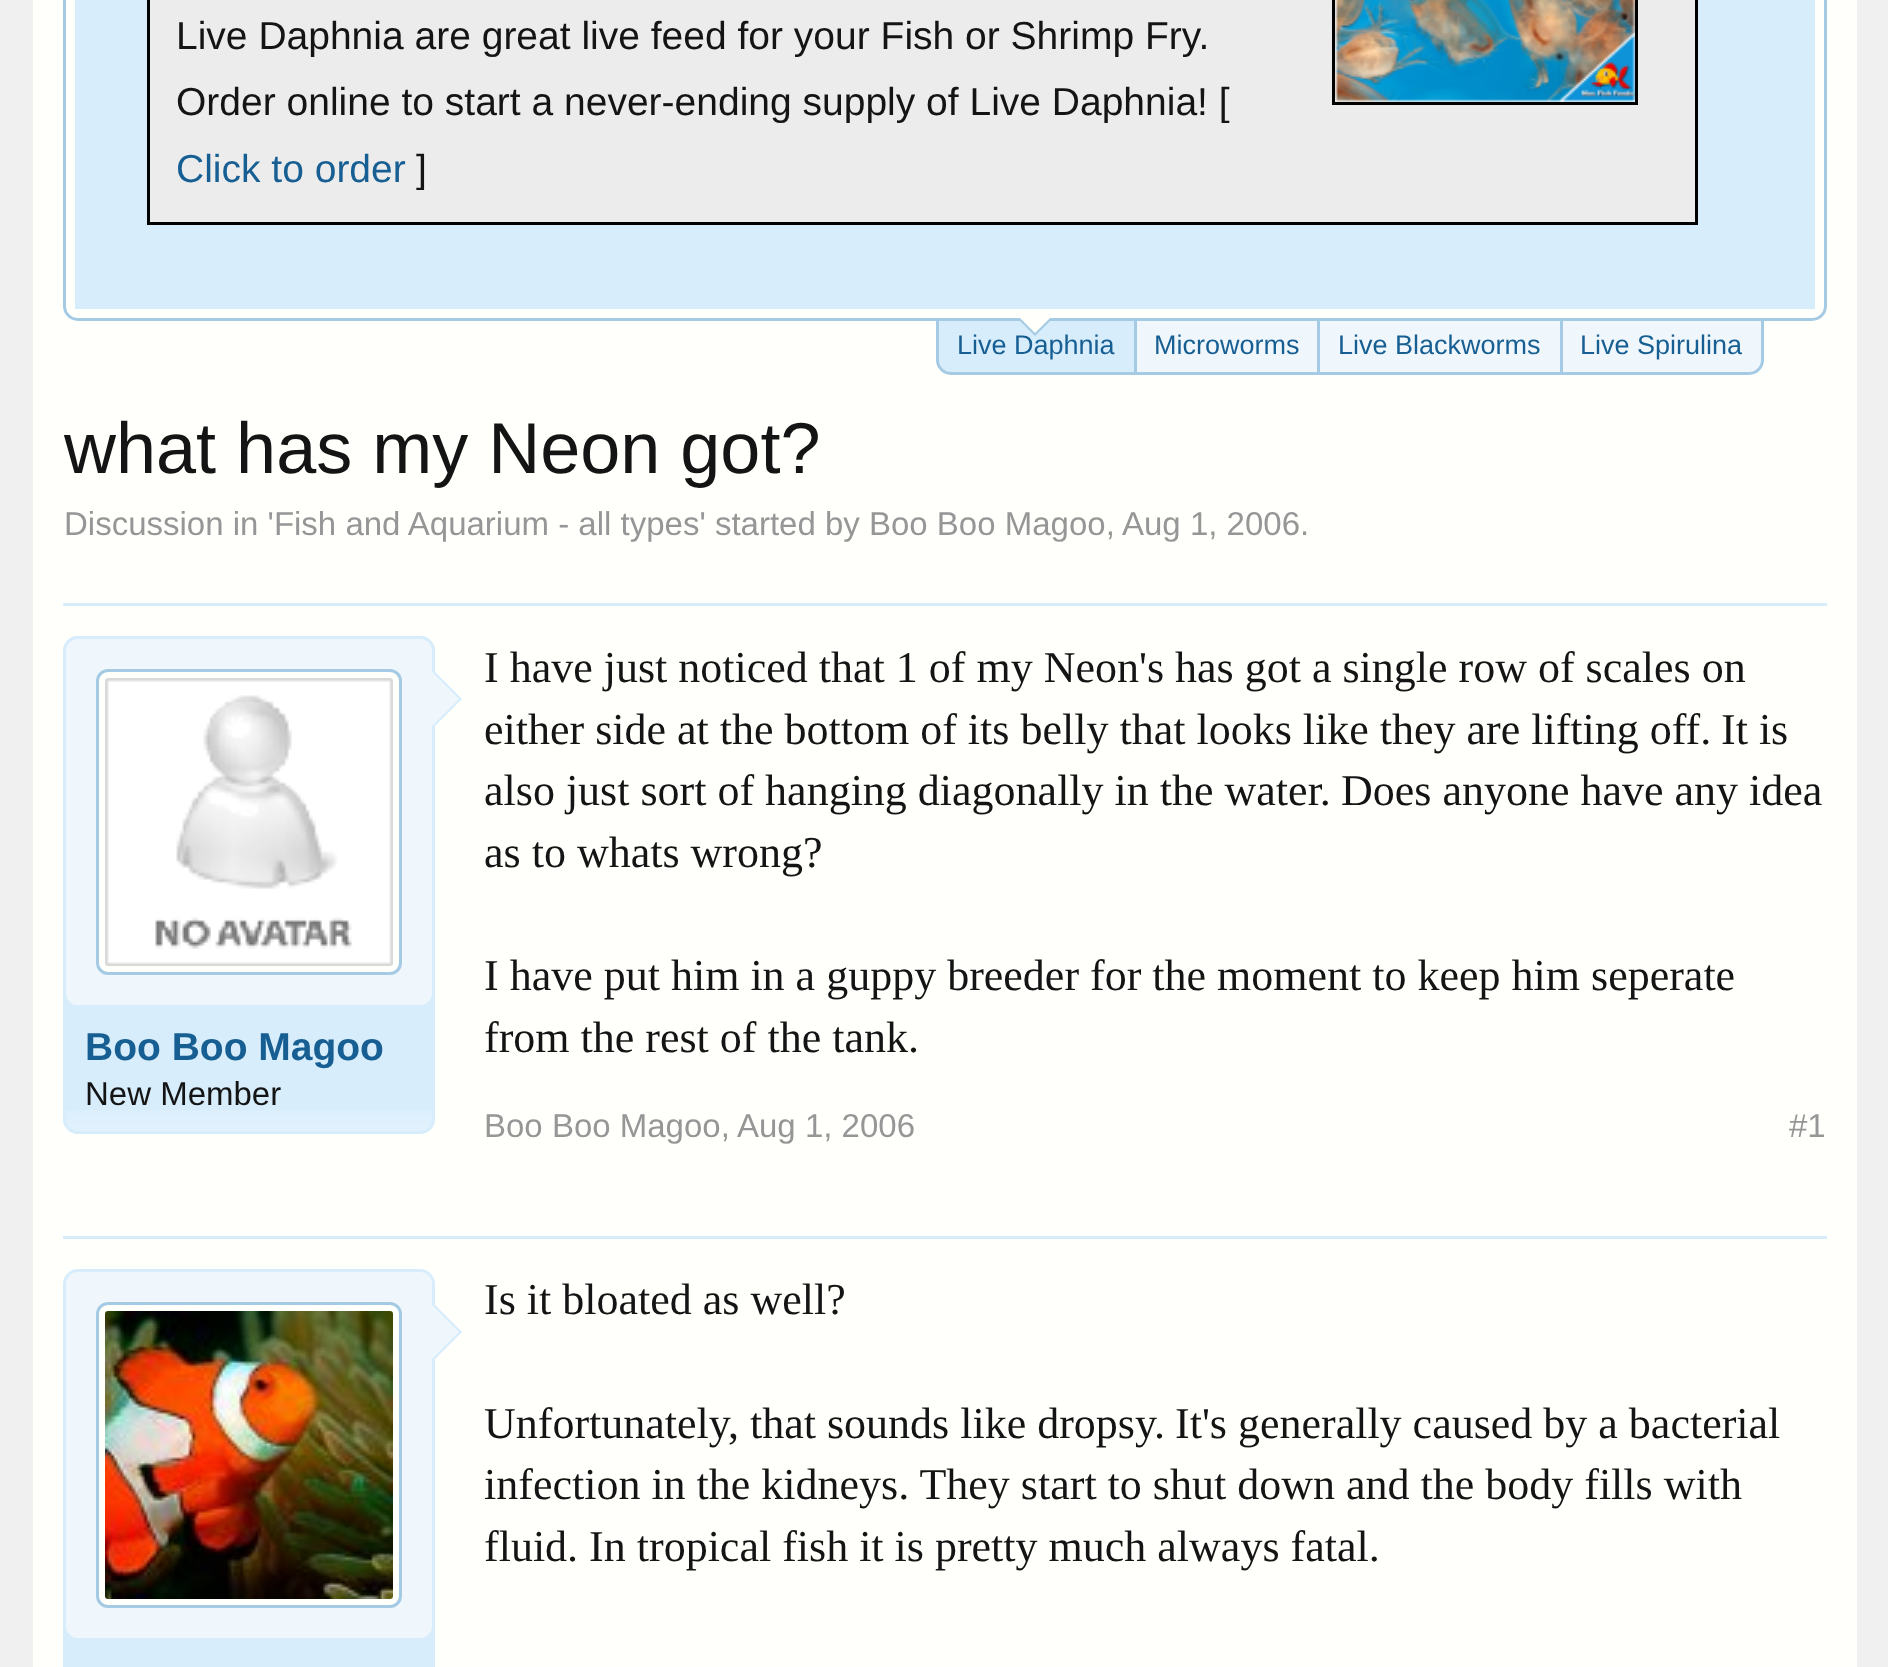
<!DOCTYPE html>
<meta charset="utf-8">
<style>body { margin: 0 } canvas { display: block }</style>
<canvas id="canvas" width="1888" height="1667"></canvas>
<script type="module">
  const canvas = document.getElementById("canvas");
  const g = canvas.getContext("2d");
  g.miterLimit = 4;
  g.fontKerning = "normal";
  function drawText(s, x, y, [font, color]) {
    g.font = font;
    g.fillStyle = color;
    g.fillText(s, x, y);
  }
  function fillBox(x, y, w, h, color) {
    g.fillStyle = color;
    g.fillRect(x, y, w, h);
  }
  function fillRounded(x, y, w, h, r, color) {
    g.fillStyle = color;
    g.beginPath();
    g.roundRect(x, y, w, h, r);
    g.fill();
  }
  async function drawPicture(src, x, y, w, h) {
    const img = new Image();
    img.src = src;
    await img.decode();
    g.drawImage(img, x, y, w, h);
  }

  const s1 = ["39px Liberation Sans", "#141414"];
  const s2 = ["39px Liberation Sans", "#175F93"];
  const s3 = ["27px Liberation Sans", "#175F93"];
  const s4 = ["72px Liberation Sans", "#141414"];
  const s5 = ["33px Liberation Sans", "#969696"];
  const s6 = ["bold 39px Liberation Sans", "#175F93"];
  const s7 = ["33px Liberation Sans", "#141414"];
  const s8 = ["44px Liberation Serif", "#141414"];

  fillBox(0, 0, 1888, 1667, "#F0F0F0");
  fillBox(33, 0, 1824, 1667, "#FFFFFC");
  g.beginPath();
  g.roundRect(64.5, -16.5, 1761, 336, 13.5);
  g.strokeStyle = "#A5CAE4";
  g.lineWidth = 3;
  g.stroke();
  fillBox(75, 0, 1740, 309, "#D7EDFC");
  fillBox(150, 0, 1545, 222, "#ECECEC");
  fillBox(1695, 0, 3, 225, "#000000");
  fillBox(147, 222, 1551, 3, "#000000");
  fillBox(147, 0, 3, 225, "#000000");
  drawText("Live Daphnia are great live feed for your Fish or Shrimp Fry.", 176, 49, s1);
  g.strokeStyle = "#000000";
  g.strokeRect(1333.5, -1.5, 303, 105);
  await drawPicture("pic1.png", 1335, 0, 300, 102);
  drawText("Order online to start a never-ending supply of Live Daphnia! [", 176, 115, s1);
  drawText("Click to order", 176, 182, s2);
  drawText("]", 416, 182, s1);
  g.fillStyle = "#D7EDFC";
  g.beginPath();
  g.roundRect(937.5, 319.5, 198, 54, [0, 0, 0, 13.5]);
  g.fill();
  g.strokeStyle = "#A5CAE4";
  g.stroke();
  drawText("Live Daphnia", 957, 354, s3);
  g.fillStyle = "#A5CAE4";
  g.beginPath();
  g.moveTo(1020, 321);
  g.lineTo(1050, 321);
  g.lineTo(1035, 336);
  g.closePath();
  g.fill();
  g.fillStyle = "#FFFFFC";
  g.beginPath();
  g.moveTo(1020, 318);
  g.lineTo(1050, 318);
  g.lineTo(1035, 333);
  g.closePath();
  g.fill();
  g.fillStyle = "#F0F7FC";
  g.beginPath();
  g.rect(1135.5, 319.5, 183, 54);
  g.fill();
  g.stroke();
  drawText("Microworms", 1154, 354, s3);
  g.fillStyle = "#F0F7FC";
  g.beginPath();
  g.rect(1318.5, 319.5, 243, 54);
  g.fill();
  g.stroke();
  drawText("Live Blackworms", 1338, 354, s3);
  g.fillStyle = "#F0F7FC";
  g.beginPath();
  g.roundRect(1561.5, 319.5, 201, 54, [0, 0, 13.5, 0]);
  g.fill();
  g.stroke();
  drawText("Live Spirulina", 1580, 354, s3);
  drawText("what has my Neon got?", 64, 473, s4);
  drawText("Discussion in 'Fish and Aquarium - all types' started by Boo Boo Magoo,", 64, 535, s5);
  drawText("Aug 1, 2006.", 1122, 535, s5);
  fillBox(63, 603, 1764, 3, "#D7EDFC");
  fillRounded(63, 636, 372, 498, 15, "#D7EDFC");
  await drawPicture("pic2.png", 63, 1110, 372, 21);
  g.beginPath();
  g.roundRect(64.5, 637.5, 369, 495, 13.5);
  g.strokeStyle = "#D7EDFC";
  g.stroke();
  fillRounded(66, 639, 366, 366, 12, "#F0F7FC");
  g.fillStyle = "#FFFFFC";
  g.beginPath();
  g.roundRect(97.5, 670.5, 303, 303, 10.5);
  g.fill();
  g.strokeStyle = "#A5CAE4";
  g.stroke();
  await drawPicture("pic3.png", 105, 678, 288, 288);
  g.fillStyle = "#D7EDFC";
  g.beginPath();
  g.moveTo(432, 729);
  g.lineTo(432, 669);
  g.lineTo(462, 699);
  g.closePath();
  g.fill();
  g.fillStyle = "#F0F7FC";
  g.beginPath();
  g.moveTo(429, 729);
  g.lineTo(429, 669);
  g.lineTo(459, 699);
  g.closePath();
  g.fill();
  drawText("Boo Boo Magoo", 85, 1060, s6);
  drawText("New Member", 85, 1105, s7);
  drawText("I have just noticed that 1 of my Neon's has got a single row of scales on", 484, 682, s8);
  drawText("either side at the bottom of its belly that looks like they are lifting off.", 484, 744, s8);
  drawText("It is", 1721, 744, s8);
  drawText("also just sort of hanging diagonally in the water.", 484, 805, s8);
  drawText("Does anyone have any idea", 1341, 805, s8);
  drawText("as to whats wrong?", 484, 867, s8);
  drawText("I have put him in a guppy breeder for the moment to keep him seperate", 484, 990, s8);
  drawText("from the rest of the tank.", 484, 1052, s8);
  drawText("Boo Boo Magoo,", 484, 1137, s5);
  drawText("Aug 1, 2006", 737, 1137, s5);
  drawText("#1", 1789, 1137, s5);
  fillBox(63, 1236, 1764, 3, "#D7EDFC");
  g.beginPath();
  g.roundRect(64.5, 1270.5, 369, 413, 13.5);
  g.fill();
  g.strokeStyle = "#D7EDFC";
  g.stroke();
  fillRounded(66, 1272, 366, 366, 12, "#F0F7FC");
  g.fillStyle = "#FFFFFC";
  g.beginPath();
  g.roundRect(97.5, 1303.5, 303, 303, 10.5);
  g.fill();
  g.strokeStyle = "#A5CAE4";
  g.stroke();
  await drawPicture("pic4.png", 105, 1311, 288, 288);
  g.fillStyle = "#D7EDFC";
  g.beginPath();
  g.moveTo(432, 1362);
  g.lineTo(432, 1302);
  g.lineTo(462, 1332);
  g.closePath();
  g.fill();
  g.fillStyle = "#F0F7FC";
  g.beginPath();
  g.moveTo(429, 1362);
  g.lineTo(429, 1302);
  g.lineTo(459, 1332);
  g.closePath();
  g.fill();
  drawText("Is it bloated as well?", 484, 1314, s8);
  drawText("Unfortunately, that sounds like dropsy.", 484, 1438, s8);
  drawText("It's generally caused by a bacterial", 1175, 1438, s8);
  drawText("infection in the kidneys. They start to shut down and the body fills with", 484, 1499, s8);
  drawText("fluid. In tropical fish it is pretty much always fatal.", 484, 1561, s8);
</script>
